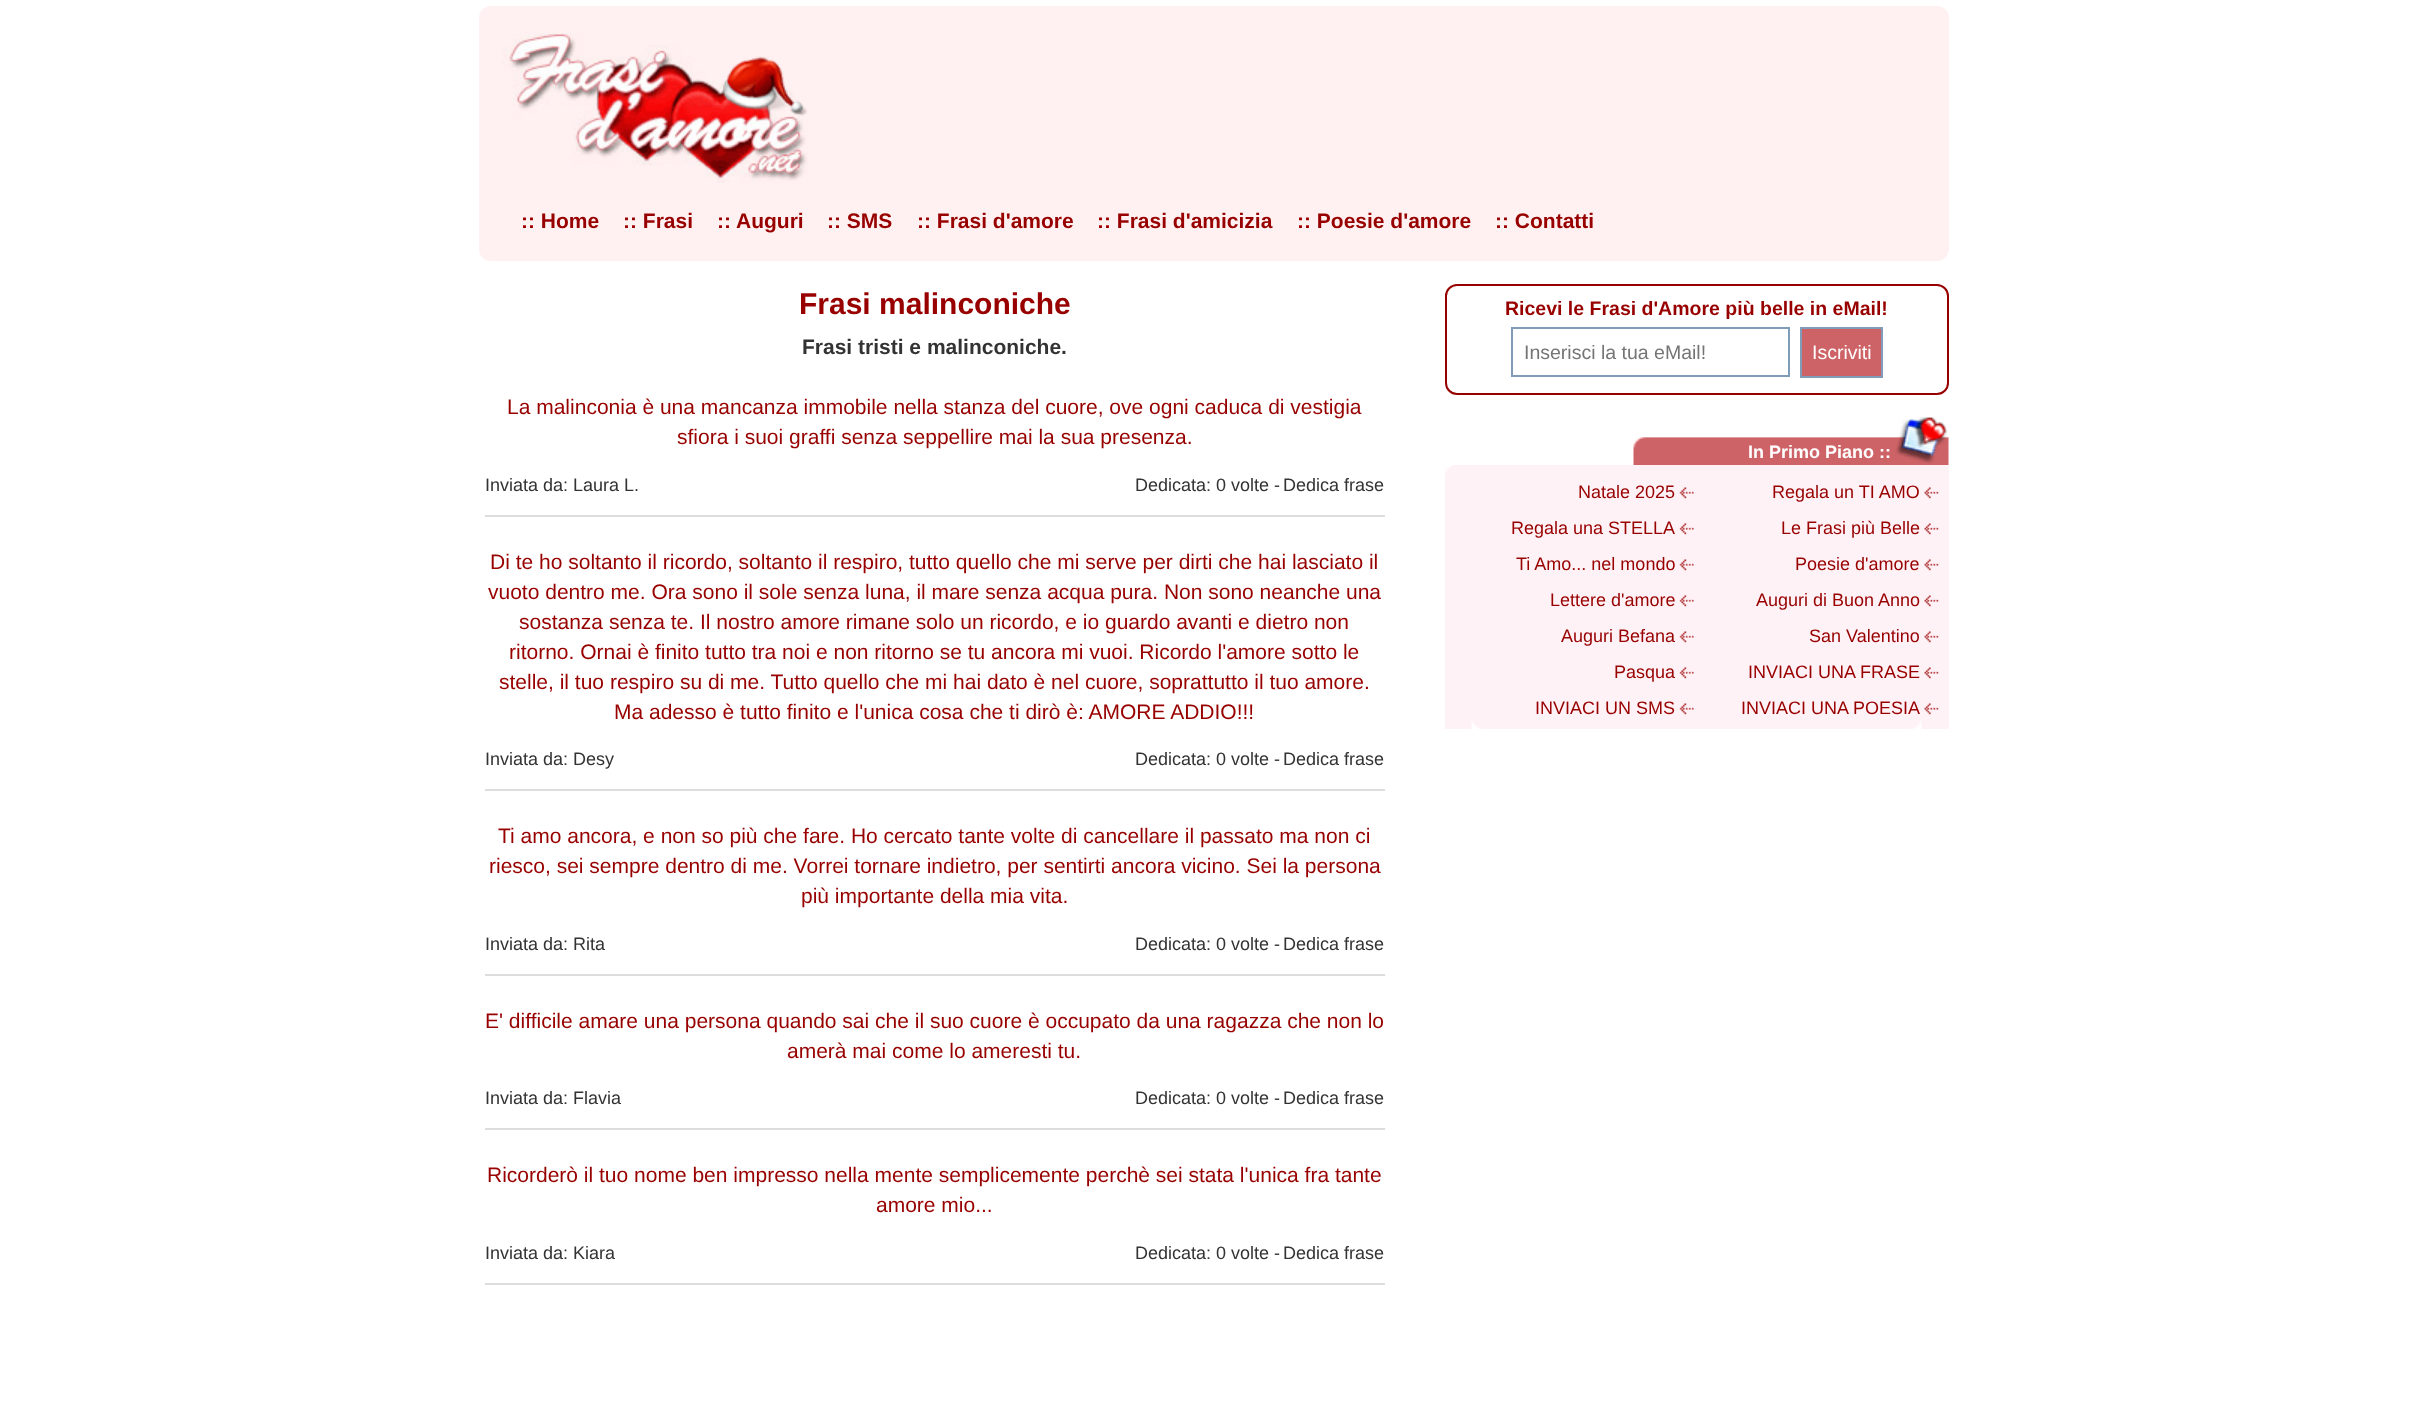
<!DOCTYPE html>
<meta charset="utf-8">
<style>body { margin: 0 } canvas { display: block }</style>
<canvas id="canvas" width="2427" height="1402"></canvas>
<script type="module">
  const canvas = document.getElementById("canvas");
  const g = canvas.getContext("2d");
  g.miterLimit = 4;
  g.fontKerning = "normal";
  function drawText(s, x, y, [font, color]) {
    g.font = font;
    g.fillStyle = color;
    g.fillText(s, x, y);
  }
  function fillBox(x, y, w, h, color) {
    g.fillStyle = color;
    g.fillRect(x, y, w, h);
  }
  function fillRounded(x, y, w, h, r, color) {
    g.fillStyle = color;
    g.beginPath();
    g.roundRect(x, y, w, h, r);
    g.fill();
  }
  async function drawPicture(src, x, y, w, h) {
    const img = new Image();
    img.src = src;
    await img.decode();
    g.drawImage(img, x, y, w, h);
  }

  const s1 = ["bold 21px Liberation Sans", "#980000"];
  const s2 = ["bold 30px Liberation Sans", "#980000"];
  const s3 = ["bold 21px Liberation Sans", "#333333"];
  const s4 = ["21px Liberation Sans", "#980000"];
  const s5 = ["18px Liberation Sans", "#333333"];
  const s6 = ["bold 19.5px Liberation Sans", "#980000"];
  const s7 = ["19.5px Liberation Sans", "#757575"];
  const s8 = ["19.5px Liberation Sans", "#FFFFFF"];
  const s9 = ["bold 18px Liberation Sans", "#FFFFFF"];
  const s10 = ["18px Liberation Sans", "#980000"];

  fillBox(0, 0, 2427, 1402, "#FFFFFF");
  fillRounded(479, 6, 1470, 255, 12, "#FFF1F1");
  await drawPicture("pic1.png", 501, 33, 307, 150);
  drawText(":: Home", 521, 228, s1);
  drawText(":: Frasi", 623, 228, s1);
  drawText(":: Auguri", 717, 228, s1);
  drawText(":: SMS", 827, 228, s1);
  drawText(":: Frasi d'amore", 917, 228, s1);
  drawText(":: Frasi d'amicizia", 1097, 228, s1);
  drawText(":: Poesie d'amore", 1297, 228, s1);
  drawText(":: Contatti", 1495, 228, s1);
  drawText("Frasi malinconiche", 799, 314, s2);
  drawText("Frasi tristi e malinconiche.", 802, 354, s3);
  drawText("La malinconia è una mancanza immobile nella stanza del cuore, ove ogni caduca di vestigia", 507, 414, s4);
  drawText("sfiora i suoi graffi senza seppellire mai la sua presenza.", 677, 444, s4);
  drawText("Inviata da: Laura L.", 485, 491, s5);
  drawText("Dedicata: 0 volte -", 1135, 491, s5);
  drawText("Dedica frase", 1283, 491, s5);
  fillBox(485, 515, 900, 2, "#DDDDDD");
  drawText("Di te ho soltanto il ricordo, soltanto il respiro, tutto quello che mi serve per dirti che hai lasciato il", 490, 569, s4);
  drawText("vuoto dentro me. Ora sono il sole senza luna, il mare senza acqua pura. Non sono neanche una", 488, 599, s4);
  drawText("sostanza senza te. Il nostro amore rimane solo un ricordo, e io guardo avanti e dietro non", 519, 629, s4);
  drawText("ritorno. Ornai è finito tutto tra noi e non ritorno se tu ancora mi vuoi. Ricordo l'amore sotto le", 509, 659, s4);
  drawText("stelle, il tuo respiro su di me. Tutto quello che mi hai dato è nel cuore, soprattutto il tuo amore.", 499, 689, s4);
  drawText("Ma adesso è tutto finito e l'unica cosa che ti dirò è: AMORE ADDIO!!!", 614, 719, s4);
  drawText("Inviata da: Desy", 485, 765, s5);
  drawText("Dedicata: 0 volte -", 1135, 765, s5);
  drawText("Dedica frase", 1283, 765, s5);
  fillBox(485, 789, 900, 2, "#DDDDDD");
  drawText("Ti amo ancora, e non so più che fare. Ho cercato tante volte di cancellare il passato ma non ci", 498, 843, s4);
  drawText("riesco, sei sempre dentro di me. Vorrei tornare indietro, per sentirti ancora vicino. Sei la persona", 489, 873, s4);
  drawText("più importante della mia vita.", 801, 903, s4);
  drawText("Inviata da: Rita", 485, 950, s5);
  drawText("Dedicata: 0 volte -", 1135, 950, s5);
  drawText("Dedica frase", 1283, 950, s5);
  fillBox(485, 974, 900, 2, "#DDDDDD");
  drawText("E' difficile amare una persona quando sai che il suo cuore è occupato da una ragazza che non lo", 485, 1028, s4);
  drawText("amerà mai come lo ameresti tu.", 787, 1058, s4);
  drawText("Inviata da: Flavia", 485, 1104, s5);
  drawText("Dedicata: 0 volte -", 1135, 1104, s5);
  drawText("Dedica frase", 1283, 1104, s5);
  fillBox(485, 1128, 900, 2, "#DDDDDD");
  drawText("Ricorderò il tuo nome ben impresso nella mente semplicemente perchè sei stata l'unica fra tante", 487, 1182, s4);
  drawText("amore mio...", 876, 1212, s4);
  drawText("Inviata da: Kiara", 485, 1259, s5);
  drawText("Dedicata: 0 volte -", 1135, 1259, s5);
  drawText("Dedica frase", 1283, 1259, s5);
  fillBox(485, 1283, 900, 2, "#DDDDDD");
  g.beginPath();
  g.roundRect(1446, 285, 502, 109, 11);
  g.strokeStyle = "#980000";
  g.lineWidth = 2;
  g.stroke();
  drawText("Ricevi le Frasi d'Amore più belle in eMail!", 1505, 315, s6);
  g.strokeStyle = "#7F9DB9";
  g.strokeRect(1512, 328, 277, 48);
  drawText("Inserisci la tua eMail!", 1524, 359, s7);
  g.fillStyle = "#CE6367";
  g.beginPath();
  g.rect(1801, 328, 81, 49);
  g.fill();
  g.stroke();
  drawText("Iscriviti", 1812, 359, s8);
  await drawPicture("pic2.png", 1633, 417, 316, 48);
  drawText("In Primo Piano ::", 1748, 458, s9);
  fillBox(1445, 465, 504, 264, "#FFF2F7");
  await drawPicture("pic3.png", 1445, 465, 8, 8);
  await drawPicture("pic4.png", 1471, 721, 451, 8);
  await drawPicture("pic5.png", 1679, 487, 15, 12);
  drawText("Natale 2025", 1578, 498, s10);
  await drawPicture("pic6.png", 1924, 487, 15, 12);
  drawText("Regala un TI AMO", 1772, 498, s10);
  await drawPicture("pic5.png", 1679, 523, 15, 12);
  drawText("Regala una STELLA", 1511, 534, s10);
  await drawPicture("pic6.png", 1924, 523, 15, 12);
  drawText("Le Frasi più Belle", 1781, 534, s10);
  await drawPicture("pic5.png", 1679, 559, 15, 12);
  drawText("Ti Amo... nel mondo", 1516, 570, s10);
  await drawPicture("pic6.png", 1924, 559, 15, 12);
  drawText("Poesie d'amore", 1795, 570, s10);
  await drawPicture("pic5.png", 1679, 595, 15, 12);
  drawText("Lettere d'amore", 1550, 606, s10);
  await drawPicture("pic6.png", 1924, 595, 15, 12);
  drawText("Auguri di Buon Anno", 1756, 606, s10);
  await drawPicture("pic5.png", 1679, 631, 15, 12);
  drawText("Auguri Befana", 1561, 642, s10);
  await drawPicture("pic6.png", 1924, 631, 15, 12);
  drawText("San Valentino", 1809, 642, s10);
  await drawPicture("pic5.png", 1679, 667, 15, 12);
  drawText("Pasqua", 1614, 678, s10);
  await drawPicture("pic6.png", 1924, 667, 15, 12);
  drawText("INVIACI UNA FRASE", 1748, 678, s10);
  await drawPicture("pic5.png", 1679, 703, 15, 12);
  drawText("INVIACI UN SMS", 1535, 714, s10);
  await drawPicture("pic6.png", 1924, 703, 15, 12);
  drawText("INVIACI UNA POESIA", 1741, 714, s10);
</script>
